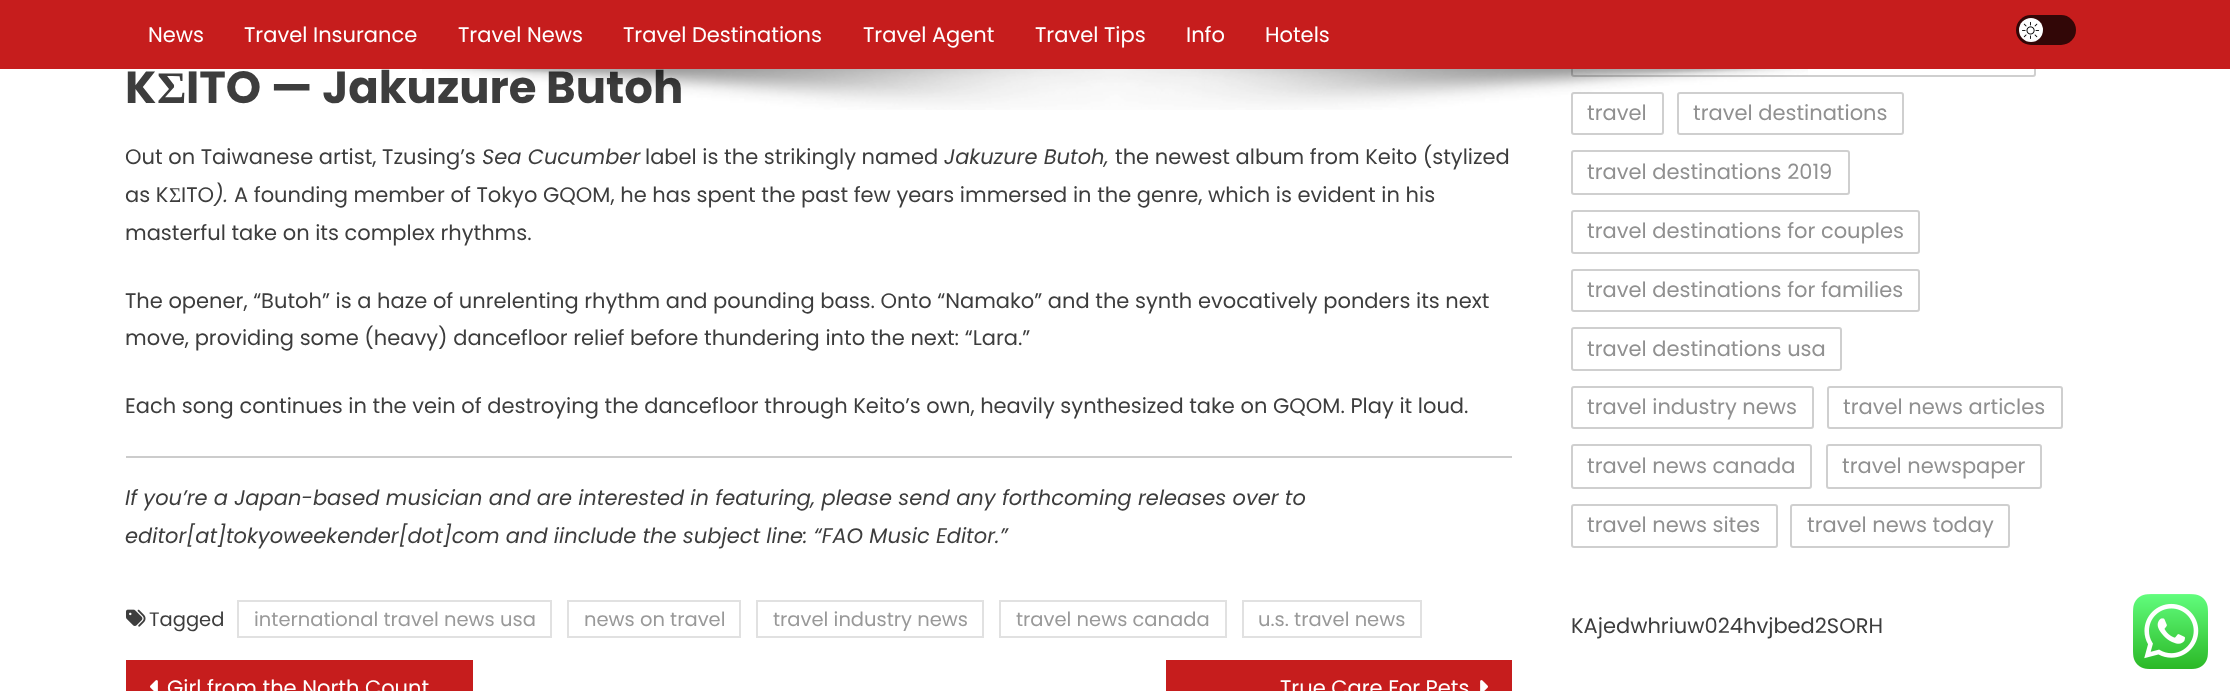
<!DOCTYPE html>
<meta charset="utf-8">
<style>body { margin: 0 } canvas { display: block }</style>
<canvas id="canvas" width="2230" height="691"></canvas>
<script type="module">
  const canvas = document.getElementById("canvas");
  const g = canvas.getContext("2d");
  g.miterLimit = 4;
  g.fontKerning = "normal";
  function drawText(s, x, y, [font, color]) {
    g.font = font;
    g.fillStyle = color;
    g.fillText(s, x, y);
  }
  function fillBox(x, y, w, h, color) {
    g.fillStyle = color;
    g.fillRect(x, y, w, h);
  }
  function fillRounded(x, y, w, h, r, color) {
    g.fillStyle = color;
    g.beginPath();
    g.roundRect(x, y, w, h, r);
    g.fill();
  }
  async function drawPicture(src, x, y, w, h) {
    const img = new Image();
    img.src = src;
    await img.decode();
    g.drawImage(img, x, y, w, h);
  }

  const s1 = ["21px Poppins", "#FFFFFF"];
  const s2 = ["bold 45px Poppins", "#3D3D3D"];
  const s3 = ["21px Poppins", "#909090"];
  const s4 = ["bold 45px Liberation Serif", "#3D3D3D"];
  const s5 = ["21px Poppins", "#3D3D3D"];
  const s6 = ["italic 21px Poppins", "#3D3D3D"];
  const s7 = ["21px Liberation Serif", "#3D3D3D"];
  const s8 = ["19.5px Poppins", "#3D3D3D"];
  const s9 = ["19.5px Poppins", "#999999"];

  fillBox(0, 0, 2230, 691, "#FFFFFF");
  g.beginPath();
  g.roundRect(1572, 34, 463, 42, 2);
  g.strokeStyle = "#CFCFCF";
  g.lineWidth = 2;
  g.stroke();
  fillBox(0, 0, 2230, 69, "#C61D1D");
  drawText("News", 148, 42, s1);
  drawText("Travel Insurance", 244, 42, s1);
  drawText("Travel News", 458, 42, s1);
  drawText("Travel Destinations", 623, 42, s1);
  drawText("Travel Agent", 863, 42, s1);
  drawText("Travel Tips", 1035, 42, s1);
  drawText("Info", 1186, 42, s1);
  drawText("Hotels", 1265, 42, s1);
  fillRounded(2016, 15, 60, 30, 15, "#320707");
  g.fillStyle = "#FFFFFF";
  g.beginPath();
  g.arc(2031, 30, 12, 0, Math.PI * 2);
  g.fill();
  await drawPicture("pic1.png", 2022, 21, 18, 18);
  drawText("ITO — Jakuzure Butoh", 186, 103, s2);
  g.beginPath();
  g.roundRect(1572, 93, 91, 41, 2);
  g.stroke();
  drawText("travel", 1587, 120, s3);
  g.beginPath();
  g.roundRect(1678, 93, 225, 41, 2);
  g.stroke();
  drawText("travel destinations", 1693, 120, s3);
  await drawPicture("pic2.png", 422, 69, 1386, 41);
  drawText("K", 125, 103, s2);
  drawText("Σ", 157, 103, s4);
  drawText("Out on Taiwanese artist, Tzusing’s", 125, 164, s5);
  drawText("Sea Cucumber", 482, 164, s6);
  drawText("label is the strikingly named", 645, 164, s5);
  drawText("Jakuzure Butoh,", 944, 164, s6);
  drawText("the newest album from Keito (stylized", 1115, 164, s5);
  drawText("as K", 125, 202, s5);
  drawText("Σ", 169, 202, s7);
  drawText("ITO", 181, 202, s5);
  drawText(").", 214, 202, s6);
  drawText("A founding member of Tokyo GQOM, he has spent the past few years immersed in the genre, which is evident in his", 234, 202, s5);
  drawText("masterful take on its complex rhythms.", 125, 240, s5);
  drawText("The opener, “Butoh” is a haze of unrelenting rhythm and pounding bass. Onto “Namako” and the synth evocatively ponders its next", 125, 308, s5);
  drawText("move, providing some (heavy) dancefloor relief before thundering into the next: “Lara.”", 125, 345, s5);
  drawText("Each song continues in the vein of destroying the dancefloor through Keito’s own, heavily synthesized take on GQOM. Play it loud.", 125, 413, s5);
  fillBox(126, 456, 1386, 2, "#CCCCCC");
  drawText("If you’re a Japan-based musician and are interested in featuring, please send any forthcoming releases over to", 125, 505, s6);
  drawText("editor[at]tokyoweekender[dot]com and iinclude the subject line: “FAO Music Editor.”", 125, 543, s6);
  await drawPicture("pic3.png", 126, 609, 20, 18);
  drawText("Tagged", 149, 626, s8);
  g.strokeStyle = "#E1E1E1";
  g.strokeRect(238, 601, 313, 36);
  drawText("international travel news usa", 254, 626, s9);
  g.strokeRect(568, 601, 172, 36);
  drawText("news on travel", 584, 626, s9);
  g.strokeRect(757, 601, 226, 36);
  drawText("travel industry news", 773, 626, s9);
  g.strokeRect(1000, 601, 226, 36);
  drawText("travel news canada", 1016, 626, s9);
  g.strokeRect(1243, 601, 178, 36);
  drawText("u.s. travel news", 1258, 626, s9);
  fillBox(126, 660, 347, 31, "#C61D1D");
  await drawPicture("pic4.png", 150, 680, 8, 11);
  drawText("Girl from the North Count", 167, 695, s1);
  fillBox(1166, 660, 346, 31, "#C61D1D");
  drawText("True Care For Pets", 1280, 695, s1);
  await drawPicture("pic5.png", 1480, 680, 8, 11);
  g.beginPath();
  g.roundRect(1572, 151, 277, 43, 2);
  g.strokeStyle = "#CFCFCF";
  g.stroke();
  drawText("travel destinations 2019", 1587, 179, s3);
  g.beginPath();
  g.roundRect(1572, 211, 347, 42, 2);
  g.stroke();
  drawText("travel destinations for couples", 1587, 238, s3);
  g.beginPath();
  g.roundRect(1572, 270, 347, 41, 2);
  g.stroke();
  drawText("travel destinations for families", 1587, 297, s3);
  g.beginPath();
  g.roundRect(1572, 328, 269, 42, 2);
  g.stroke();
  drawText("travel destinations usa", 1587, 356, s3);
  g.beginPath();
  g.roundRect(1572, 387, 241, 41, 2);
  g.stroke();
  drawText("travel industry news", 1587, 414, s3);
  g.beginPath();
  g.roundRect(1828, 387, 234, 41, 2);
  g.stroke();
  drawText("travel news articles", 1843, 414, s3);
  g.beginPath();
  g.roundRect(1572, 445, 239, 43, 2);
  g.stroke();
  drawText("travel news canada", 1587, 473, s3);
  g.beginPath();
  g.roundRect(1827, 445, 214, 43, 2);
  g.stroke();
  drawText("travel newspaper", 1842, 473, s3);
  g.beginPath();
  g.roundRect(1572, 505, 205, 42, 2);
  g.stroke();
  drawText("travel news sites", 1587, 532, s3);
  g.beginPath();
  g.roundRect(1791, 505, 218, 42, 2);
  g.stroke();
  drawText("travel news today", 1807, 532, s3);
  drawText("KAjedwhriuw024hvjbed2SORH", 1571, 633, s5);
  await drawPicture("pic6.png", 2133, 594, 75, 75);
</script>
